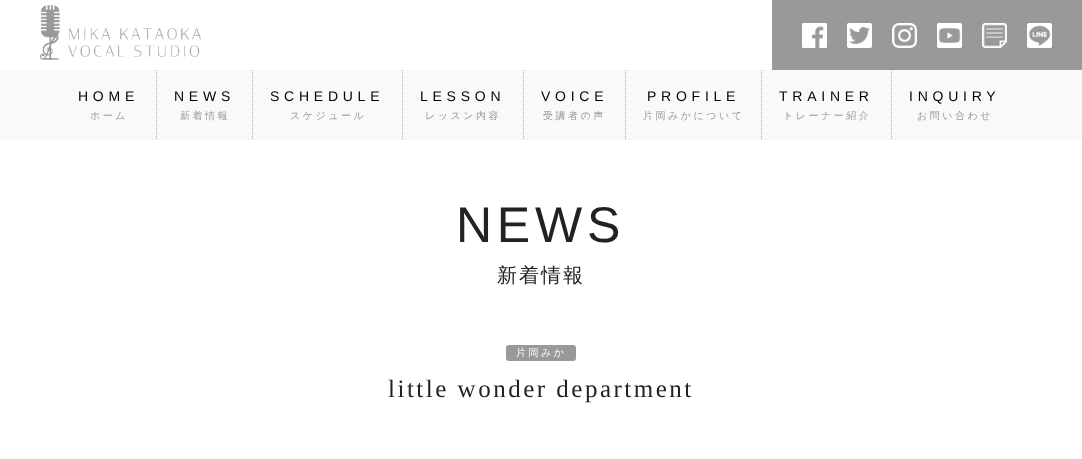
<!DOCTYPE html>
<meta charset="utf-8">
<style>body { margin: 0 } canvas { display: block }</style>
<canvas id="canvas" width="1082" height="459"></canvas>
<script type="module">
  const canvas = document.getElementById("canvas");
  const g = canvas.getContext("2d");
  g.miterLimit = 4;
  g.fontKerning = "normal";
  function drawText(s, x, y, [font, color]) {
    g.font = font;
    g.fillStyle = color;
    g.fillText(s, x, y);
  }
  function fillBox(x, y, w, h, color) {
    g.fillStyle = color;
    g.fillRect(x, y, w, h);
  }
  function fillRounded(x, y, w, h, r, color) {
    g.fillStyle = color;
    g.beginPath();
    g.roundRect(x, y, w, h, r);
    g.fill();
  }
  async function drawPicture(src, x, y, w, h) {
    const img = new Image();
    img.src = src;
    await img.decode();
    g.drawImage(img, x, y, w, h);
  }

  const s1 = ["14px Liberation Sans", "#000000"];
  const s2 = ["500 10px WenQuanYi Zen Hei", "#999999"];
  const s3 = ["50px Liberation Sans", "#222222"];
  const s4 = ["500 20px WenQuanYi Zen Hei", "#222222"];
  const s5 = ["500 10px WenQuanYi Zen Hei", "#FFFFFF"];
  const s6 = ["25px Liberation Serif", "#222222"];

  fillBox(0, 0, 1082, 459, "#FFFFFF");
  await drawPicture("pic1.png", 40, 5, 161, 55);
  fillBox(0, 70, 1082, 70, "#F9F9F9");
  fillBox(772, 0, 310, 70, "#999999");
  await drawPicture("pic2.png", 802, 23, 25, 25);
  await drawPicture("pic3.png", 847, 23, 25, 25);
  await drawPicture("pic4.png", 892, 23, 25, 25);
  await drawPicture("pic5.png", 937, 23, 25, 25);
  await drawPicture("pic6.png", 982, 23, 25, 25);
  await drawPicture("pic7.png", 1027, 23, 25, 25);
  g.letterSpacing = "4.75px";
  drawText("HOME", 78, 101, s1);
  g.letterSpacing = "2.5px";
  drawText("ホーム", 90, 119, s2);
  g.beginPath();
  g.moveTo(156.5, 70);
  g.lineTo(156.5, 140);
  g.strokeStyle = "#AEAEAE";
  g.setLineDash([1, 1]);
  g.stroke();
  g.letterSpacing = "4.75px";
  drawText("NEWS", 174, 101, s1);
  g.letterSpacing = "2.5px";
  drawText("新着情報", 180, 119, s2);
  g.beginPath();
  g.moveTo(252.5, 70);
  g.lineTo(252.5, 140);
  g.stroke();
  g.letterSpacing = "4.75px";
  drawText("SCHEDULE", 270, 101, s1);
  g.letterSpacing = "2.5px";
  drawText("スケジュール", 290, 119, s2);
  g.beginPath();
  g.moveTo(402.5, 70);
  g.lineTo(402.5, 140);
  g.stroke();
  g.letterSpacing = "4.75px";
  drawText("LESSON", 420, 101, s1);
  g.letterSpacing = "2.5px";
  drawText("レッスン内容", 425, 119, s2);
  g.beginPath();
  g.moveTo(523.5, 70);
  g.lineTo(523.5, 140);
  g.stroke();
  g.letterSpacing = "4.75px";
  drawText("VOICE", 541, 101, s1);
  g.letterSpacing = "2.5px";
  drawText("受講者の声", 543, 119, s2);
  g.beginPath();
  g.moveTo(625.5, 70);
  g.lineTo(625.5, 140);
  g.stroke();
  g.letterSpacing = "4.75px";
  drawText("PROFILE", 647, 101, s1);
  g.letterSpacing = "2.5px";
  drawText("片岡みかについて", 643, 119, s2);
  g.beginPath();
  g.moveTo(761.5, 70);
  g.lineTo(761.5, 140);
  g.stroke();
  g.letterSpacing = "4.75px";
  drawText("TRAINER", 779, 101, s1);
  g.letterSpacing = "2.5px";
  drawText("トレーナー紹介", 783, 119, s2);
  g.beginPath();
  g.moveTo(891.5, 70);
  g.lineTo(891.5, 140);
  g.stroke();
  g.letterSpacing = "4.75px";
  drawText("INQUIRY", 909, 101, s1);
  g.letterSpacing = "2.5px";
  drawText("お問い合わせ", 917, 119, s2);
  g.letterSpacing = "4.75px";
  drawText("NEWS", 456, 242, s3);
  g.letterSpacing = "2px";
  drawText("新着情報", 497, 282, s4);
  fillRounded(506, 345, 70, 16, 3, "#999999");
  g.letterSpacing = "2.5px";
  drawText("片岡みか", 516, 356, s5);
  drawText("little wonder department", 388, 397, s6);
</script>
